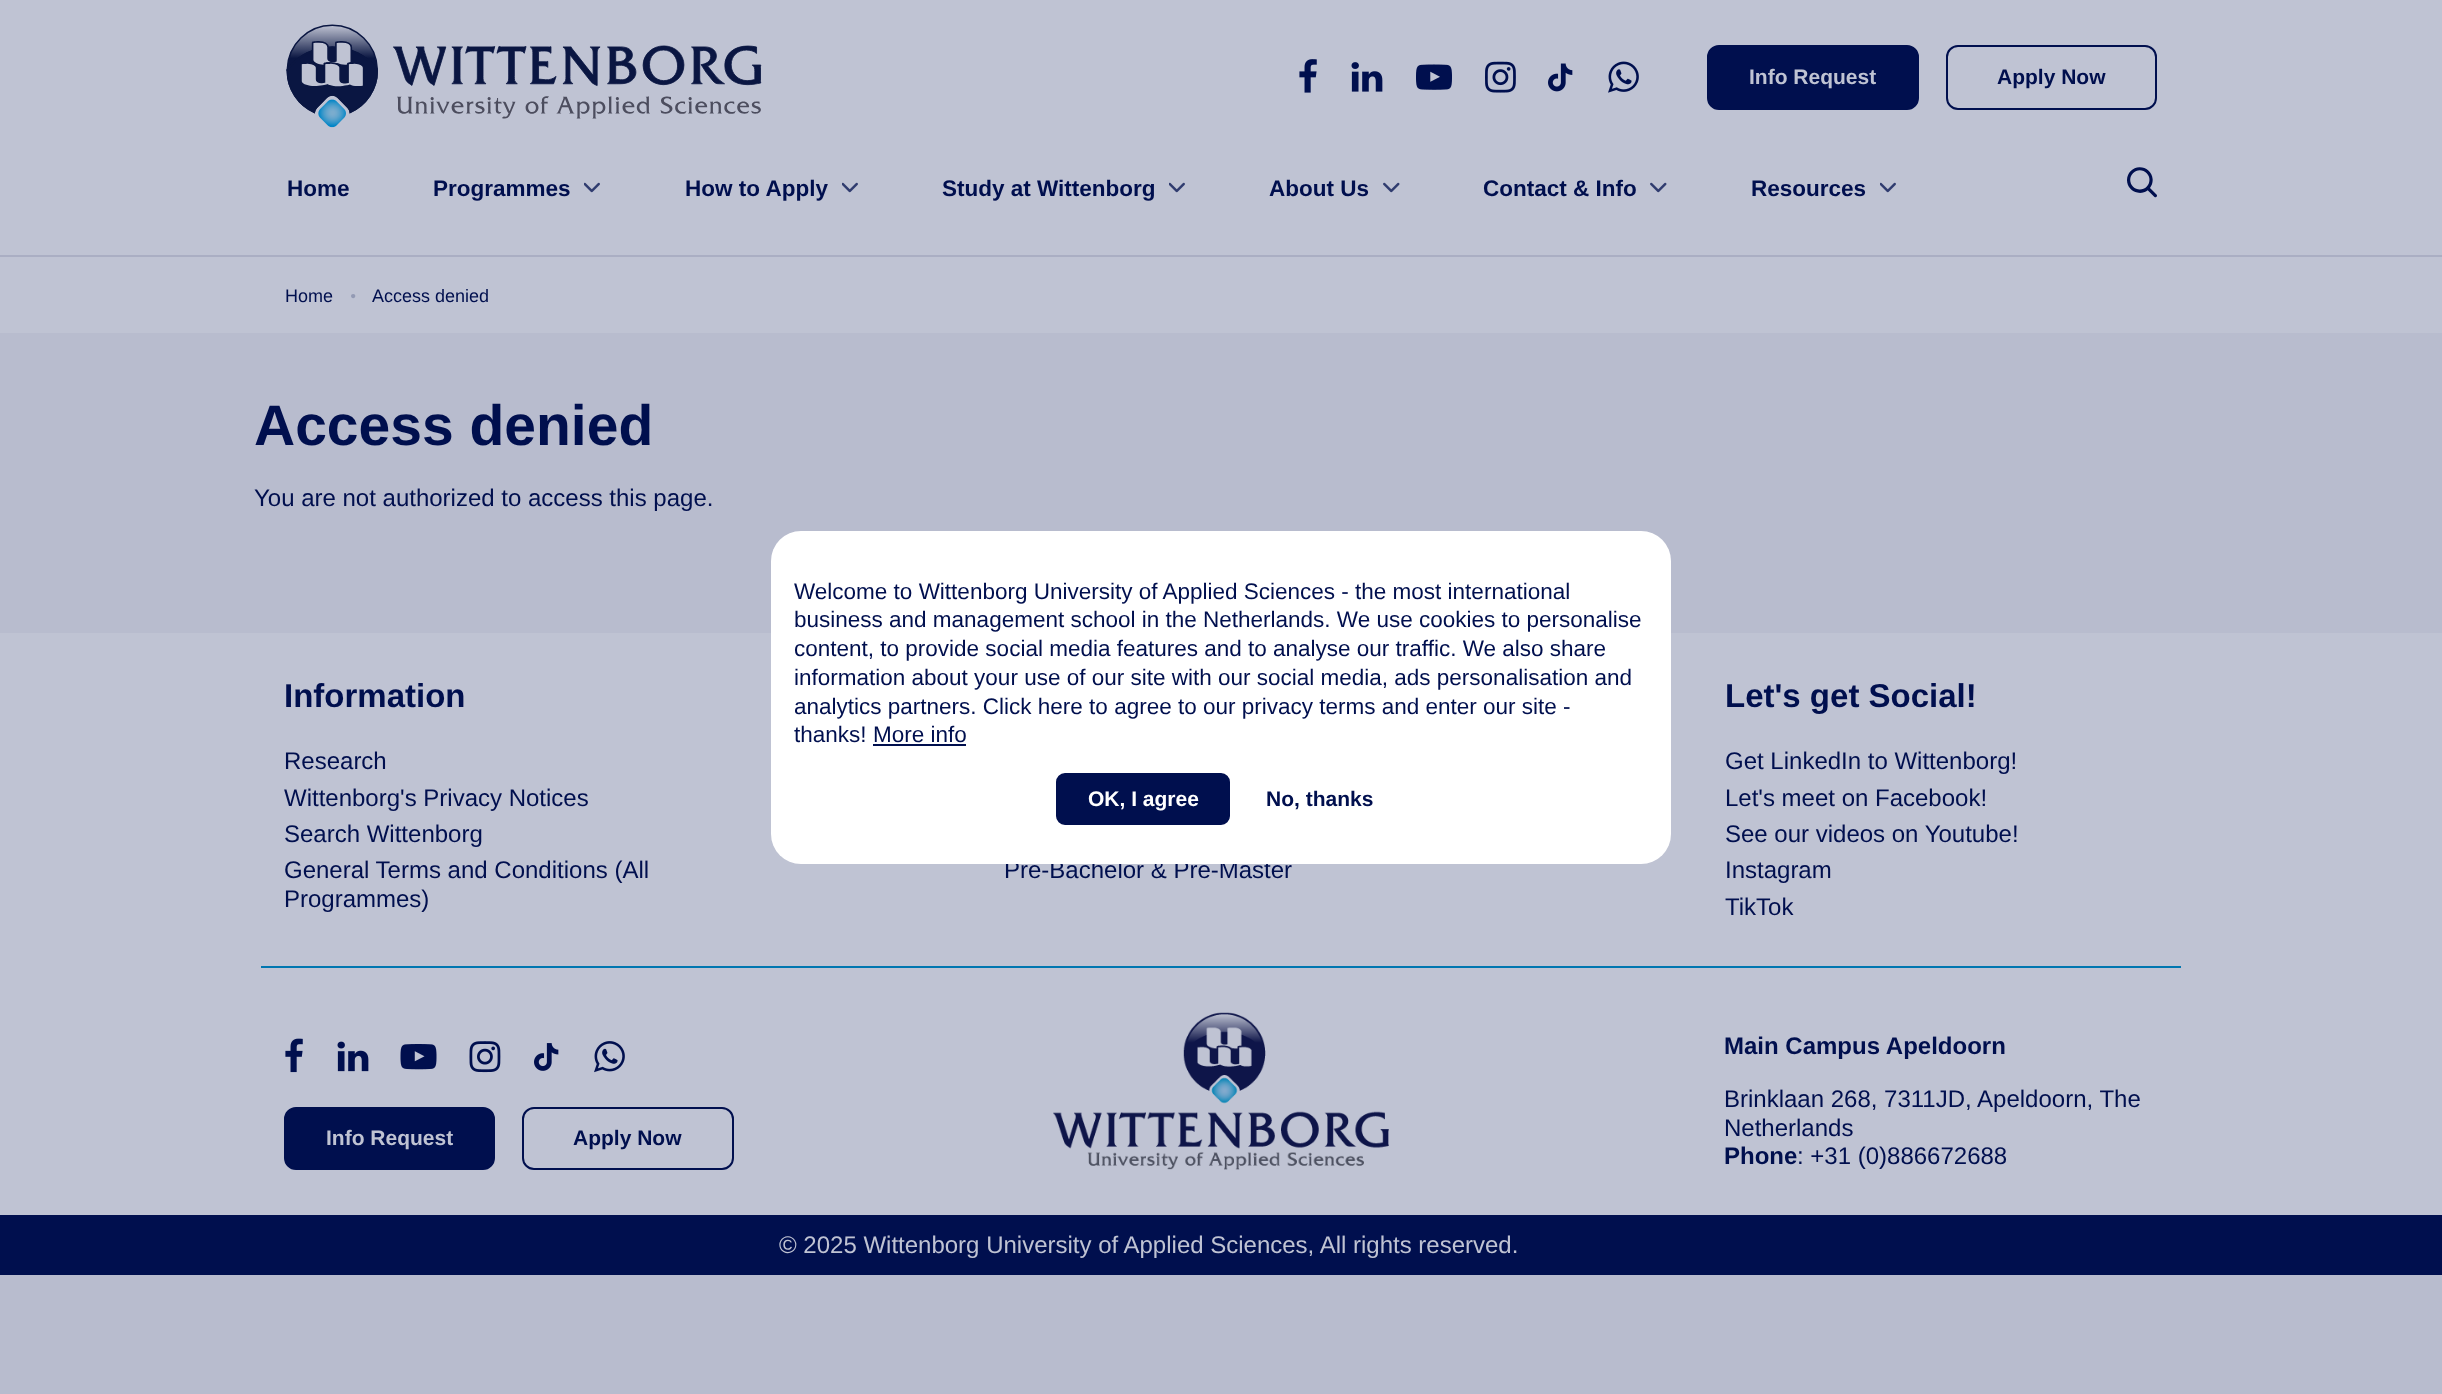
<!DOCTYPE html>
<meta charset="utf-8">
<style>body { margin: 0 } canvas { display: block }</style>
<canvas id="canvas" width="2442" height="1394"></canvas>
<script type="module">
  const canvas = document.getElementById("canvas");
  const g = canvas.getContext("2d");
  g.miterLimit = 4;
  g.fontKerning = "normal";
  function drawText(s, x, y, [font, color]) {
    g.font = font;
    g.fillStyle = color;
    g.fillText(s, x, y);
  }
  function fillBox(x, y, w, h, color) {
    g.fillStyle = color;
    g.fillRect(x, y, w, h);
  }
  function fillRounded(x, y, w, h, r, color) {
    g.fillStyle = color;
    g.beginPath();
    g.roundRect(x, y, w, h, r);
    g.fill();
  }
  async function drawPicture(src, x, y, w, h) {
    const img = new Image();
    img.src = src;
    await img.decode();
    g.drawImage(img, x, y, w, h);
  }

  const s1 = ["bold 21px Liberation Sans", "#BFC3D3"];
  const s2 = ["bold 21px Liberation Sans", "#000F4E"];
  const s3 = ["bold 22.5px Liberation Sans", "#000F4E"];
  const s4 = ["18px Liberation Sans", "#000F4E"];
  const s5 = ["18px Liberation Serif", "#939AB4"];
  const s6 = ["bold 57px Liberation Sans", "#000F4E"];
  const s7 = ["24px Liberation Sans", "#000F4E"];
  const s8 = ["bold 33px Liberation Sans", "#000F4E"];
  const s9 = ["bold 24px Liberation Sans", "#000F4E"];
  const s10 = ["24px Liberation Sans", "#BFC3D3"];
  const s11 = ["22.5px Liberation Sans", "#000F4E"];
  const s12 = ["bold 21px Liberation Sans", "#FFFFFF"];

  fillBox(0, 0, 2442, 1394, "#B8BCCE");
  fillBox(0, 0, 2442, 255, "#BFC3D3");
  await drawPicture("pic1.png", 286, 24, 476, 104);
  await drawPicture("pic2.png", 1299, 59, 18, 34);
  await drawPicture("pic3.png", 1351, 62, 32, 30);
  await drawPicture("pic4.png", 1416, 64, 36, 26);
  await drawPicture("pic5.png", 1485, 61, 31, 32);
  await drawPicture("pic6.png", 1548, 63, 25, 29);
  await drawPicture("pic7.png", 1608, 61, 31, 32);
  g.fillStyle = "#000F4E";
  g.beginPath();
  g.roundRect(1708, 46, 210, 63, 11);
  g.fill();
  g.strokeStyle = "#000F4E";
  g.lineWidth = 2;
  g.stroke();
  drawText("Info Request", 1749, 84, s1);
  g.beginPath();
  g.roundRect(1947, 46, 209, 63, 11);
  g.stroke();
  drawText("Apply Now", 1997, 84, s2);
  drawText("Home", 287, 196, s3);
  drawText("Programmes", 433, 196, s3);
  await drawPicture("pic8.png", 584, 182, 16, 11);
  drawText("How to Apply", 685, 196, s3);
  await drawPicture("pic8.png", 842, 182, 16, 11);
  drawText("Study at Wittenborg", 942, 196, s3);
  await drawPicture("pic8.png", 1169, 182, 16, 11);
  drawText("About Us", 1269, 196, s3);
  await drawPicture("pic9.png", 1383, 182, 17, 11);
  drawText("Contact & Info", 1483, 196, s3);
  await drawPicture("pic9.png", 1650, 182, 17, 11);
  drawText("Resources", 1751, 196, s3);
  await drawPicture("pic8.png", 1880, 182, 16, 11);
  await drawPicture("pic10.png", 2127, 167, 30, 31);
  fillBox(0, 257, 2442, 76, "#BFC3D3");
  fillBox(0, 255, 2442, 2, "#AAAEC3");
  drawText("Home", 285, 302, s4);
  drawText("•", 350, 302, s5);
  drawText("Access denied", 372, 302, s4);
  drawText("Access denied", 254, 445, s6);
  drawText("You are not authorized to access this page.", 254, 506, s7);
  fillBox(0, 633, 2442, 582, "#BFC3D3");
  fillBox(261, 966, 1920, 2, "#0076B0");
  drawText("Information", 284, 707, s8);
  drawText("Research", 284, 769, s7);
  drawText("Wittenborg's Privacy Notices", 284, 806, s7);
  drawText("Search Wittenborg", 284, 842, s7);
  drawText("General Terms and Conditions (All", 284, 878, s7);
  drawText("Programmes)", 284, 907, s7);
  drawText("Pre-Bachelor & Pre-Master", 1004, 878, s7);
  drawText("Let's get Social!", 1725, 707, s8);
  drawText("Get LinkedIn to Wittenborg!", 1725, 769, s7);
  drawText("Let's meet on Facebook!", 1725, 806, s7);
  drawText("See our videos on Youtube!", 1725, 842, s7);
  drawText("Instagram", 1725, 878, s7);
  drawText("TikTok", 1725, 915, s7);
  await drawPicture("pic11.png", 285, 1038, 18, 35);
  await drawPicture("pic12.png", 337, 1041, 32, 31);
  await drawPicture("pic13.png", 400, 1044, 37, 26);
  await drawPicture("pic14.png", 469, 1041, 32, 32);
  await drawPicture("pic15.png", 534, 1043, 25, 28);
  await drawPicture("pic16.png", 594, 1041, 31, 32);
  g.beginPath();
  g.roundRect(285, 1108, 209, 61, 11);
  g.fill();
  g.stroke();
  drawText("Info Request", 326, 1145, s1);
  g.beginPath();
  g.roundRect(523, 1108, 210, 61, 11);
  g.stroke();
  drawText("Apply Now", 573, 1145, s2);
  await drawPicture("pic17.png", 1053, 1012, 336, 158);
  drawText("Main Campus Apeldoorn", 1724, 1054, s9);
  drawText("Brinklaan 268, 7311JD, Apeldoorn, The", 1724, 1107, s7);
  drawText("Netherlands", 1724, 1136, s7);
  drawText("Phone", 1724, 1164, s9);
  drawText(": +31 (0)886672688", 1797, 1164, s7);
  fillBox(0, 1215, 2442, 60, "#000F4E");
  drawText("© 2025 Wittenborg University of Applied Sciences, All rights reserved.", 779, 1253, s10);
  fillRounded(771, 531, 900, 333, 30, "#FFFFFF");
  drawText("Welcome to Wittenborg University of Applied Sciences - the most international", 794, 599, s11);
  drawText("business and management school in the Netherlands. We use cookies to personalise", 794, 627, s11);
  drawText("content, to provide social media features and to analyse our traffic. We also share", 794, 656, s11);
  drawText("information about your use of our site with our social media, ads personalisation and", 794, 685, s11);
  drawText("analytics partners. Click here to agree to our privacy terms and enter our site -", 794, 714, s11);
  drawText("thanks!", 794, 742, s11);
  drawText("More info", 873, 742, s11);
  fillBox(873, 744, 93, 2, "#000F4E");
  g.beginPath();
  g.roundRect(1057, 774, 172, 50, 8);
  g.fill();
  g.stroke();
  drawText("OK, I agree", 1088, 806, s12);
  drawText("No, thanks", 1266, 806, s2);
</script>
